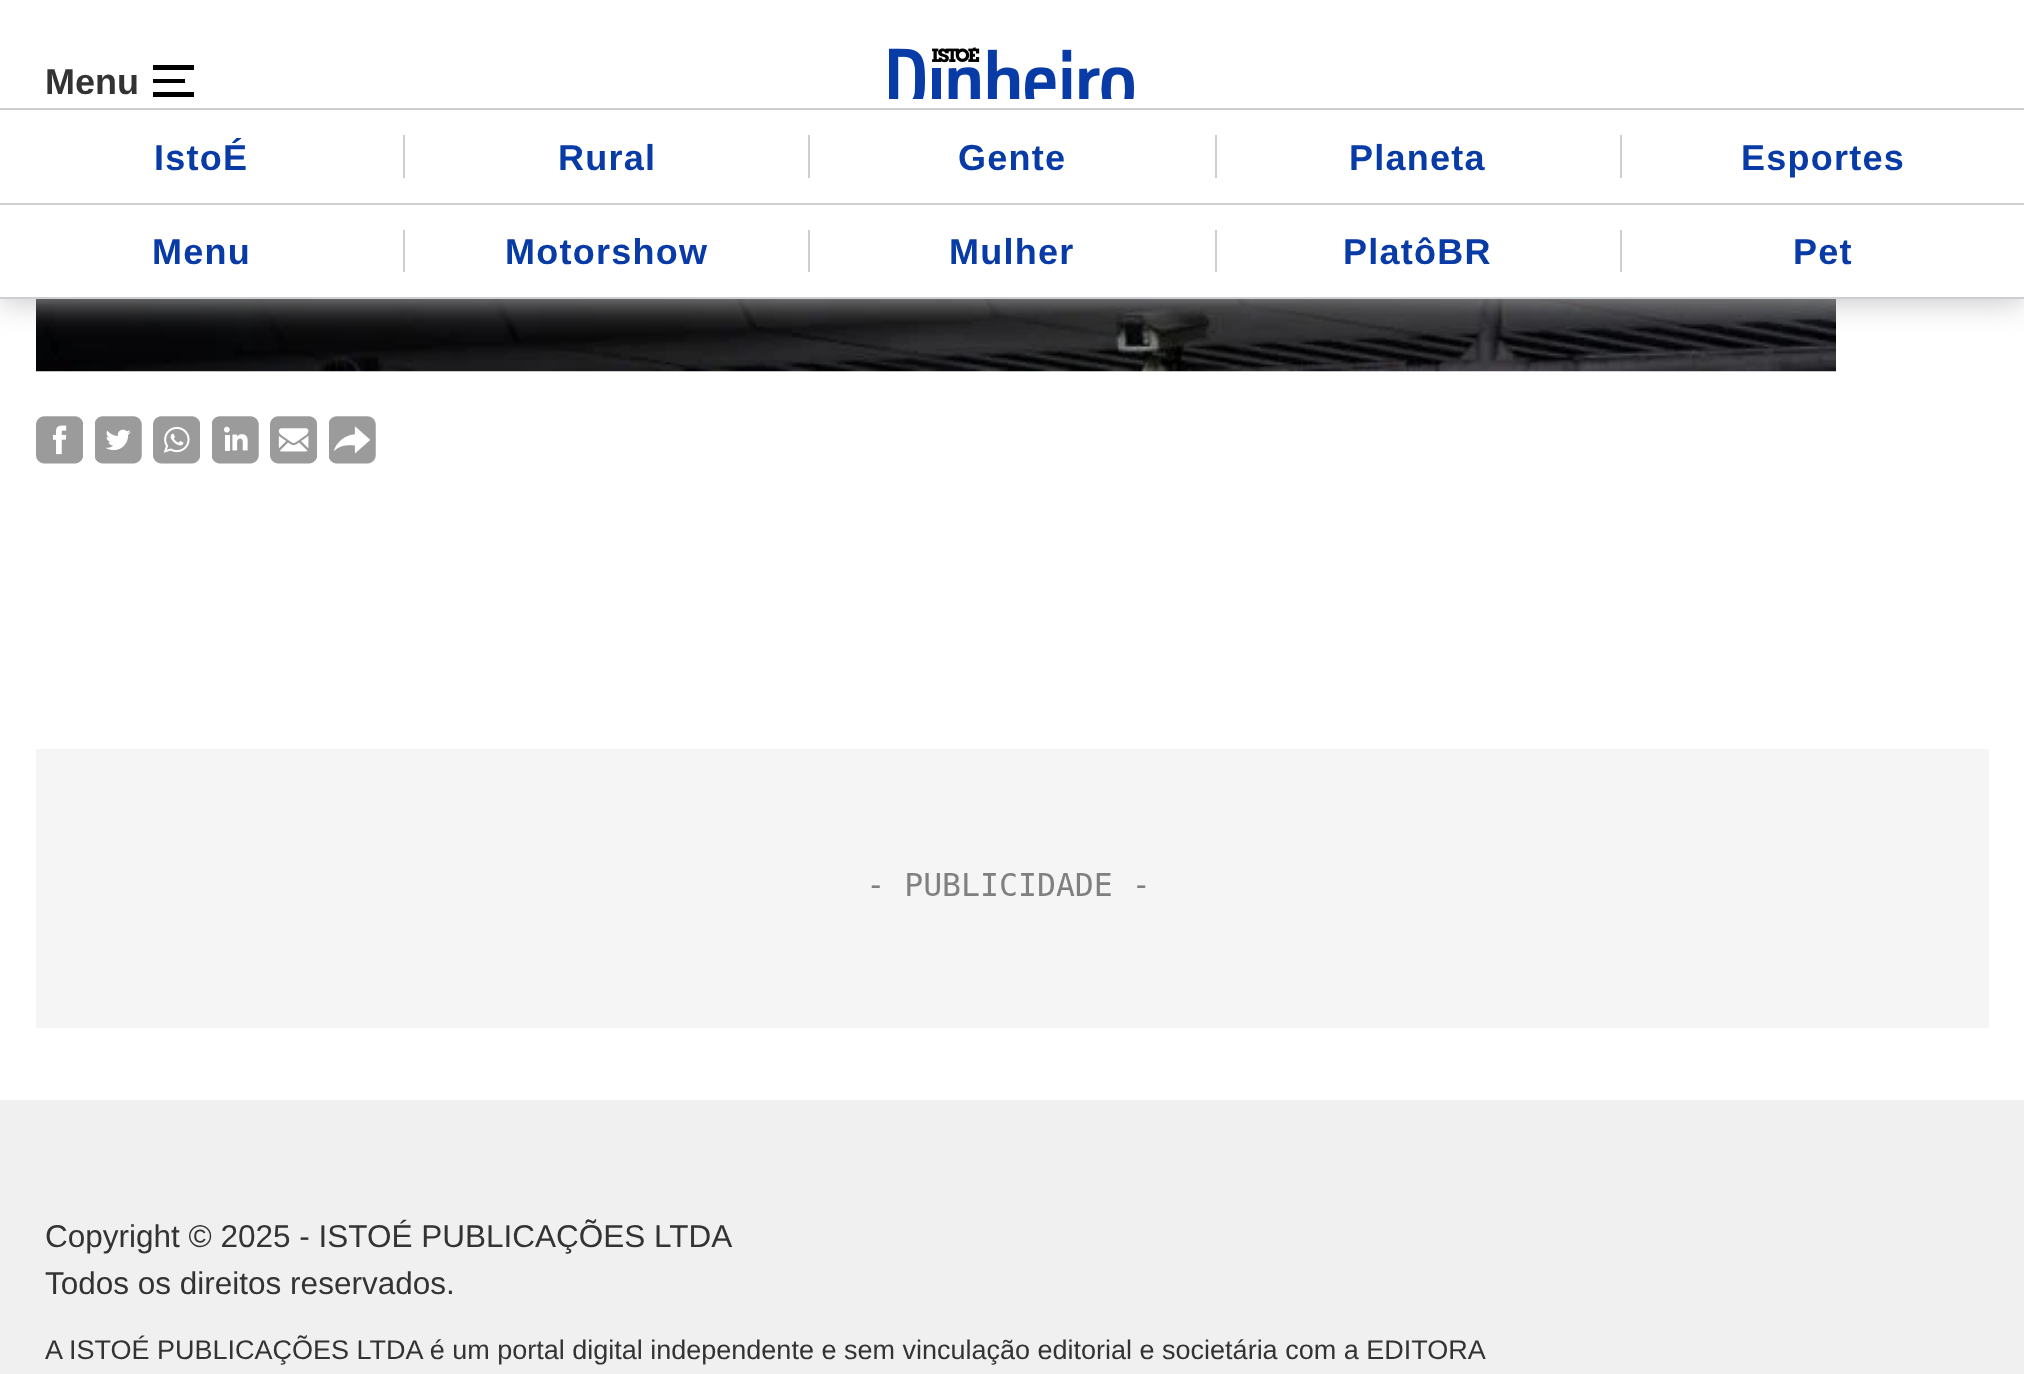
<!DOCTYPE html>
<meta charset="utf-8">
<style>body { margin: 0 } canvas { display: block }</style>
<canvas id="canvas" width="2024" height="1374"></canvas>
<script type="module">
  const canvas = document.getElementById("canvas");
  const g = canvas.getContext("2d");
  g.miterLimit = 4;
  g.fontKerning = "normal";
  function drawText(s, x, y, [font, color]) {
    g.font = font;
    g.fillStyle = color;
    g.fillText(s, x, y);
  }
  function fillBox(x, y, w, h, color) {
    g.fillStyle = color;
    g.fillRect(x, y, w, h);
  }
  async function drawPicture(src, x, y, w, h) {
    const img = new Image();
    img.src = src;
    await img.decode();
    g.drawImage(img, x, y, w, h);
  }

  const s1 = ["bold 36px Liberation Sans", "#333333"];
  const s2 = ["bold 36px Liberation Sans", "#083BA6"];
  const s3 = ["31.5px Liberation Sans", "#333333"];
  const s4 = ["27px Liberation Sans", "#333333"];

  fillBox(0, 0, 2024, 1374, "#FFFFFF");
  await drawPicture("pic2.png", 36, 299, 1800, 73);
  g.fillStyle = "#BCBCBC";
  g.filter = "blur(17px)";
  g.beginPath();
  g.rect(0, 0, 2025, 299);
  g.fill();
  g.filter = "none";
  fillBox(0, 0, 2024, 297, "#FFFFFF");
  drawText("Menu", 45, 94, s1);
  fillBox(153, 65, 41, 5, "#000000");
  fillBox(153, 92, 41, 5, "#000000");
  fillBox(153, 79, 32, 4, "#000000");
  await drawPicture("pic1.png", 889, 47, 245, 52);
  fillBox(0, 108, 2024, 2, "#CCCED2");
  fillBox(0, 203, 2024, 2, "#CCCED2");
  fillBox(403, 135, 2, 43, "#CCCED2");
  g.letterSpacing = "1.25px";
  drawText("IstoÉ", 154, 170, s2);
  fillBox(808, 135, 2, 43, "#CCCED2");
  drawText("Rural", 558, 170, s2);
  fillBox(1215, 135, 2, 43, "#CCCED2");
  drawText("Gente", 958, 170, s2);
  fillBox(1620, 135, 2, 43, "#CCCED2");
  drawText("Planeta", 1349, 170, s2);
  drawText("Esportes", 1741, 170, s2);
  fillBox(0, 297, 2024, 2, "#CCCED2");
  fillBox(403, 230, 2, 42, "#CCCED2");
  drawText("Menu", 152, 264, s2);
  fillBox(808, 230, 2, 42, "#CCCED2");
  drawText("Motorshow", 505, 264, s2);
  fillBox(1215, 230, 2, 42, "#CCCED2");
  drawText("Mulher", 949, 264, s2);
  fillBox(1620, 230, 2, 42, "#CCCED2");
  drawText("PlatôBR", 1343, 264, s2);
  drawText("Pet", 1793, 264, s2);
  await drawPicture("pic3.png", 36, 416, 47, 48);
  await drawPicture("pic4.png", 95, 416, 47, 48);
  await drawPicture("pic5.png", 153, 416, 47, 48);
  await drawPicture("pic6.png", 212, 416, 47, 48);
  await drawPicture("pic7.png", 270, 416, 47, 48);
  await drawPicture("pic8.png", 329, 416, 47, 48);
  fillBox(36, 749, 1953, 279, "#F5F5F5");
  await drawPicture("pic9.png", 871, 873, 275, 23);
  fillBox(0, 1100, 2024, 274, "#F0F0F0");
  g.letterSpacing = "0px";
  drawText("Copyright © 2025 - ISTOÉ PUBLICAÇÕES LTDA", 45, 1247, s3);
  drawText("Todos os direitos reservados.", 45, 1294, s3);
  drawText("A ISTOÉ PUBLICAÇÕES LTDA é um portal digital independente e sem vinculação editorial e societária com a EDITORA", 45, 1359, s4);
</script>
